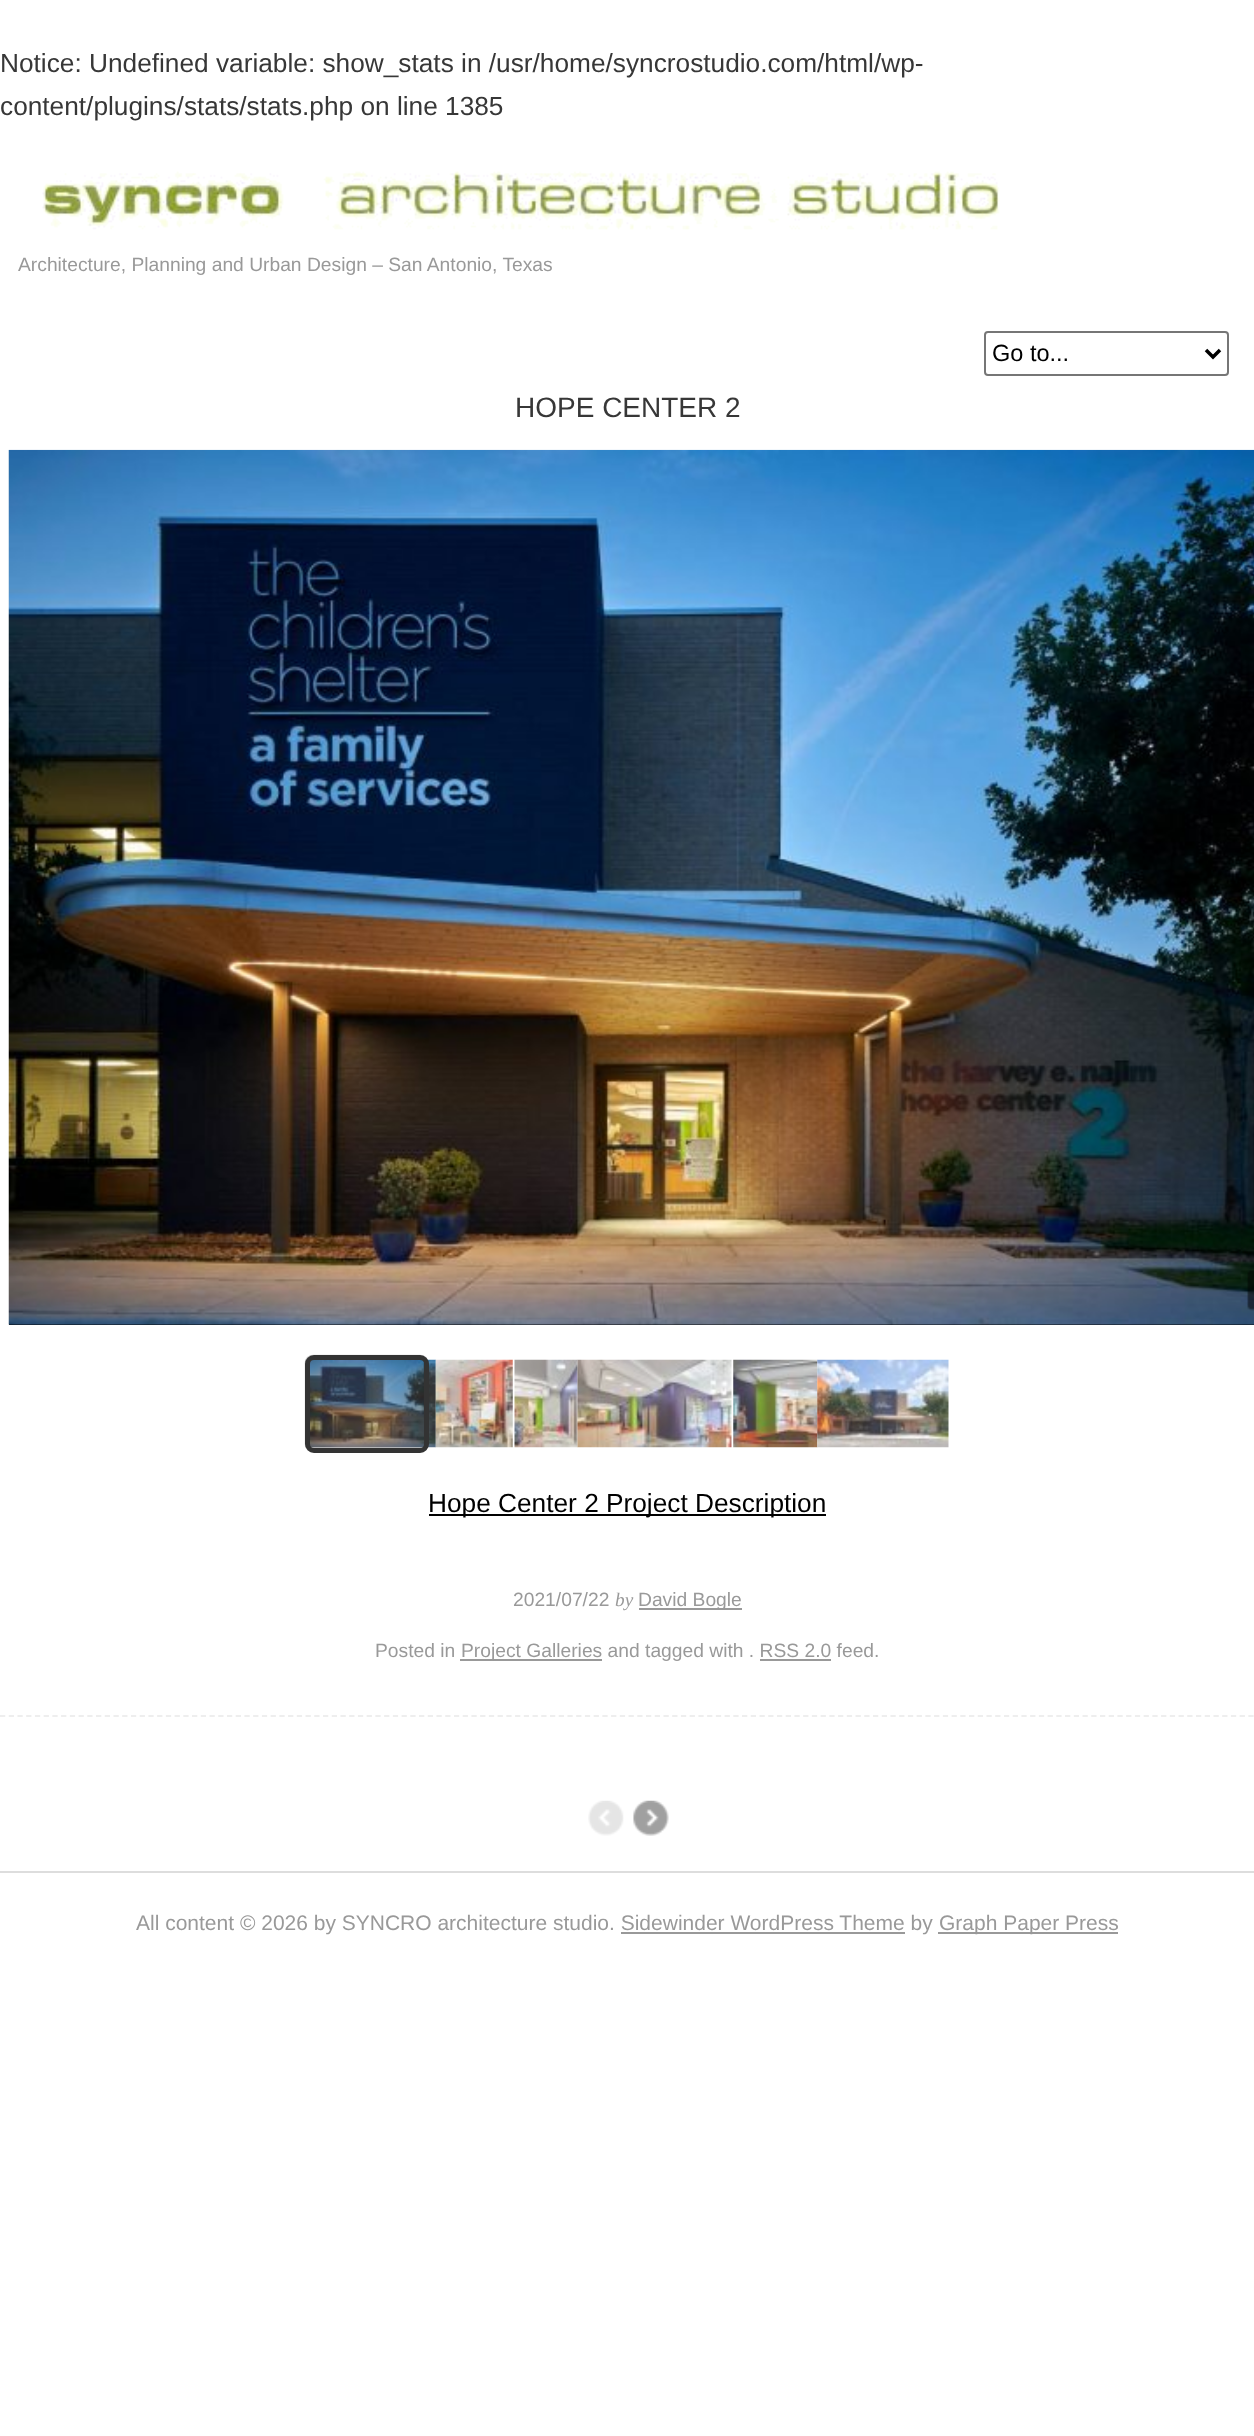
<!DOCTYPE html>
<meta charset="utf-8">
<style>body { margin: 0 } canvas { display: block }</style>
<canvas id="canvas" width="1254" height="2436"></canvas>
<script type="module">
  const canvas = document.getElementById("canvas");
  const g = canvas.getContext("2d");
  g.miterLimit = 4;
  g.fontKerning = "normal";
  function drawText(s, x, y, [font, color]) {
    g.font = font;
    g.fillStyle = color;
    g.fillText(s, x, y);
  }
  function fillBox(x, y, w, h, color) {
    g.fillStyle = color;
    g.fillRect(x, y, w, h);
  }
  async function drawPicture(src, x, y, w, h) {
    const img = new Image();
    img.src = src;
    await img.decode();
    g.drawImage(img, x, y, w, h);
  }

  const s1 = ["26.25px Liberation Sans", "#373737"];
  const s2 = ["19.25px Liberation Sans", "#999999"];
  const s3 = ["23.5px Liberation Sans", "#000000"];
  const s4 = ["28px Liberation Sans", "#373737"];
  const s5 = ["26.25px Liberation Sans", "#000000"];
  const s6 = ["italic 19.25px Liberation Serif", "#999999"];
  const s7 = ["21px Liberation Sans", "#999999"];

  fillBox(0, 0, 1254, 2436, "#FFFFFF");
  drawText("Notice: Undefined variable: show_stats in /usr/home/syncrostudio.com/html/wp-", 0, 72, s1);
  drawText("content/plugins/stats/stats.php on line 1385", 0, 115, s1);
  await drawPicture("pic1.png", 42, 171, 958, 59);
  drawText("Architecture, Planning and Urban Design – San Antonio, Texas", 18, 271, s2);
  g.beginPath();
  g.roundRect(985, 332, 243, 43, 3);
  g.strokeStyle = "#767676";
  g.lineWidth = 2;
  g.stroke();
  g.beginPath();
  g.moveTo(1206, 350);
  g.lineTo(1213, 357);
  g.lineTo(1220, 350);
  g.strokeStyle = "#000000";
  g.lineWidth = 3.5;
  g.stroke();
  drawText("Go to...", 992, 361, s3);
  g.beginPath();
  g.moveTo(0, 1716);
  g.lineTo(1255, 1716);
  g.strokeStyle = "#EEEEEE";
  g.lineWidth = 1.8;
  g.setLineDash([5.25, 3.48]);
  g.stroke();
  drawText("HOPE CENTER 2", 515, 417, s4);
  fillBox(9, 1324, 1245, 1, "#000000");
  await drawPicture("pic2.png", 8, 449, 1246, 876);
  await drawPicture("pic3.png", 1247, 1270, 7, 41);
  await drawPicture("pic5.png", 306, 1359, 130, 89);
  await drawPicture("pic4.png", 304, 1354, 125, 99);
  g.beginPath();
  g.roundRect(307.5, 1357.5, 119, 93, 6.5);
  g.strokeStyle = "#333333";
  g.lineWidth = 5;
  g.setLineDash([]);
  g.stroke();
  await drawPicture("pic6.png", 435, 1359, 78, 89);
  await drawPicture("pic7.png", 514, 1359, 64, 89);
  await drawPicture("pic8.png", 577, 1359, 155, 89);
  await drawPicture("pic9.png", 733, 1359, 85, 89);
  await drawPicture("pic10.png", 817, 1359, 132, 89);
  fillBox(429, 1514, 397, 2, "#000000");
  drawText("Hope Center 2 Project Description", 428, 1512, s5);
  drawText("2021/07/22", 513, 1606, s2);
  drawText("by", 615, 1606, s6);
  fillBox(639, 1608, 103, 2, "#999999");
  drawText("David Bogle", 638, 1606, s2);
  drawText("Posted in", 375, 1657, s2);
  fillBox(460, 1659, 142, 2, "#999999");
  drawText("Project Galleries and tagged with . RSS 2.0 feed.", 461, 1657, s2);
  fillBox(760, 1659, 71, 2, "#999999");
  await drawPicture("pic11.png", 588, 1800, 81, 36);
  await drawPicture("pic12.png", 633, 1800, 36, 36);
  fillBox(0, 1871, 1254, 2, "#DDDDDD");
  drawText("All content © 2026 by SYNCRO architecture studio. Sidewinder WordPress Theme by", 136, 1930, s7);
  fillBox(938, 1932, 180, 2, "#999999");
  drawText("Graph Paper Press", 939, 1930, s7);
  fillBox(621, 1932, 284, 2, "#999999");
</script>
